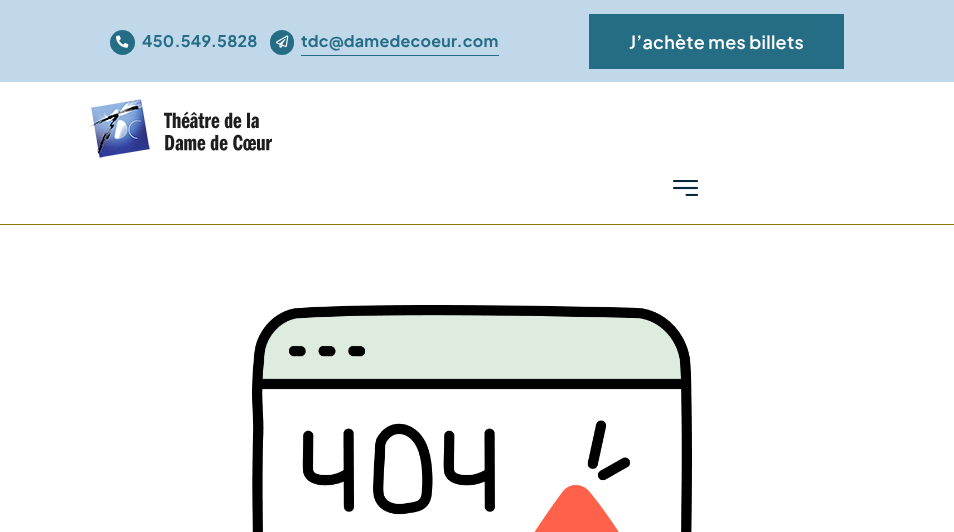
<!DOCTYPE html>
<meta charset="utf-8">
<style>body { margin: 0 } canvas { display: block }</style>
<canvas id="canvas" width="954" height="532"></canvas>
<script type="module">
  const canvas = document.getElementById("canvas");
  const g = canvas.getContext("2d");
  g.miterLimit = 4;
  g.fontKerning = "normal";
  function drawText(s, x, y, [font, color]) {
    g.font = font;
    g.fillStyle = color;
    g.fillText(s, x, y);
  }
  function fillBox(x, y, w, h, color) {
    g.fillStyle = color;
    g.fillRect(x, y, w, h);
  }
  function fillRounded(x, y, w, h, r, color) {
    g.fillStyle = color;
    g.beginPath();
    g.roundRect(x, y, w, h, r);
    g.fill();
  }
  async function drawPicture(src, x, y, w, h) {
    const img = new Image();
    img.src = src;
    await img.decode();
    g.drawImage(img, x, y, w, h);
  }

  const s1 = ["bold 16px Plus Jakarta Sans", "#256D85"];
  const s2 = ["600 18px Plus Jakarta Sans", "#FFFFFF"];

  fillBox(0, 0, 954, 532, "#FFFFFF");
  fillBox(0, 0, 954, 82, "#C0D8EA");
  g.fillStyle = "#256D85";
  g.beginPath();
  g.arc(122.5, 42.5, 12.5, 0, Math.PI * 2);
  g.fill();
  await drawPicture("pic1.png", 116, 35, 13, 13);
  g.letterSpacing = "0.25px";
  drawText("450.549.5828", 142, 47, s1);
  fillRounded(270, 30, 24, 25, 12, "#256D85");
  await drawPicture("pic2.png", 276, 35, 13, 13);
  drawText("tdc@damedecoeur.com", 301, 47, s1);
  fillBox(301, 55, 198, 1, "#256D85");
  fillBox(589, 14, 255, 55, "#256D85");
  drawText("J’achète mes billets", 629, 49, s2);
  fillBox(0, 224, 954, 1, "#8F7608");
  await drawPicture("pic3.png", 90, 99, 182, 59);
  await drawPicture("pic4.png", 673, 180, 25, 16);
  await drawPicture("pic5.png", 252, 305, 440, 227);
</script>
